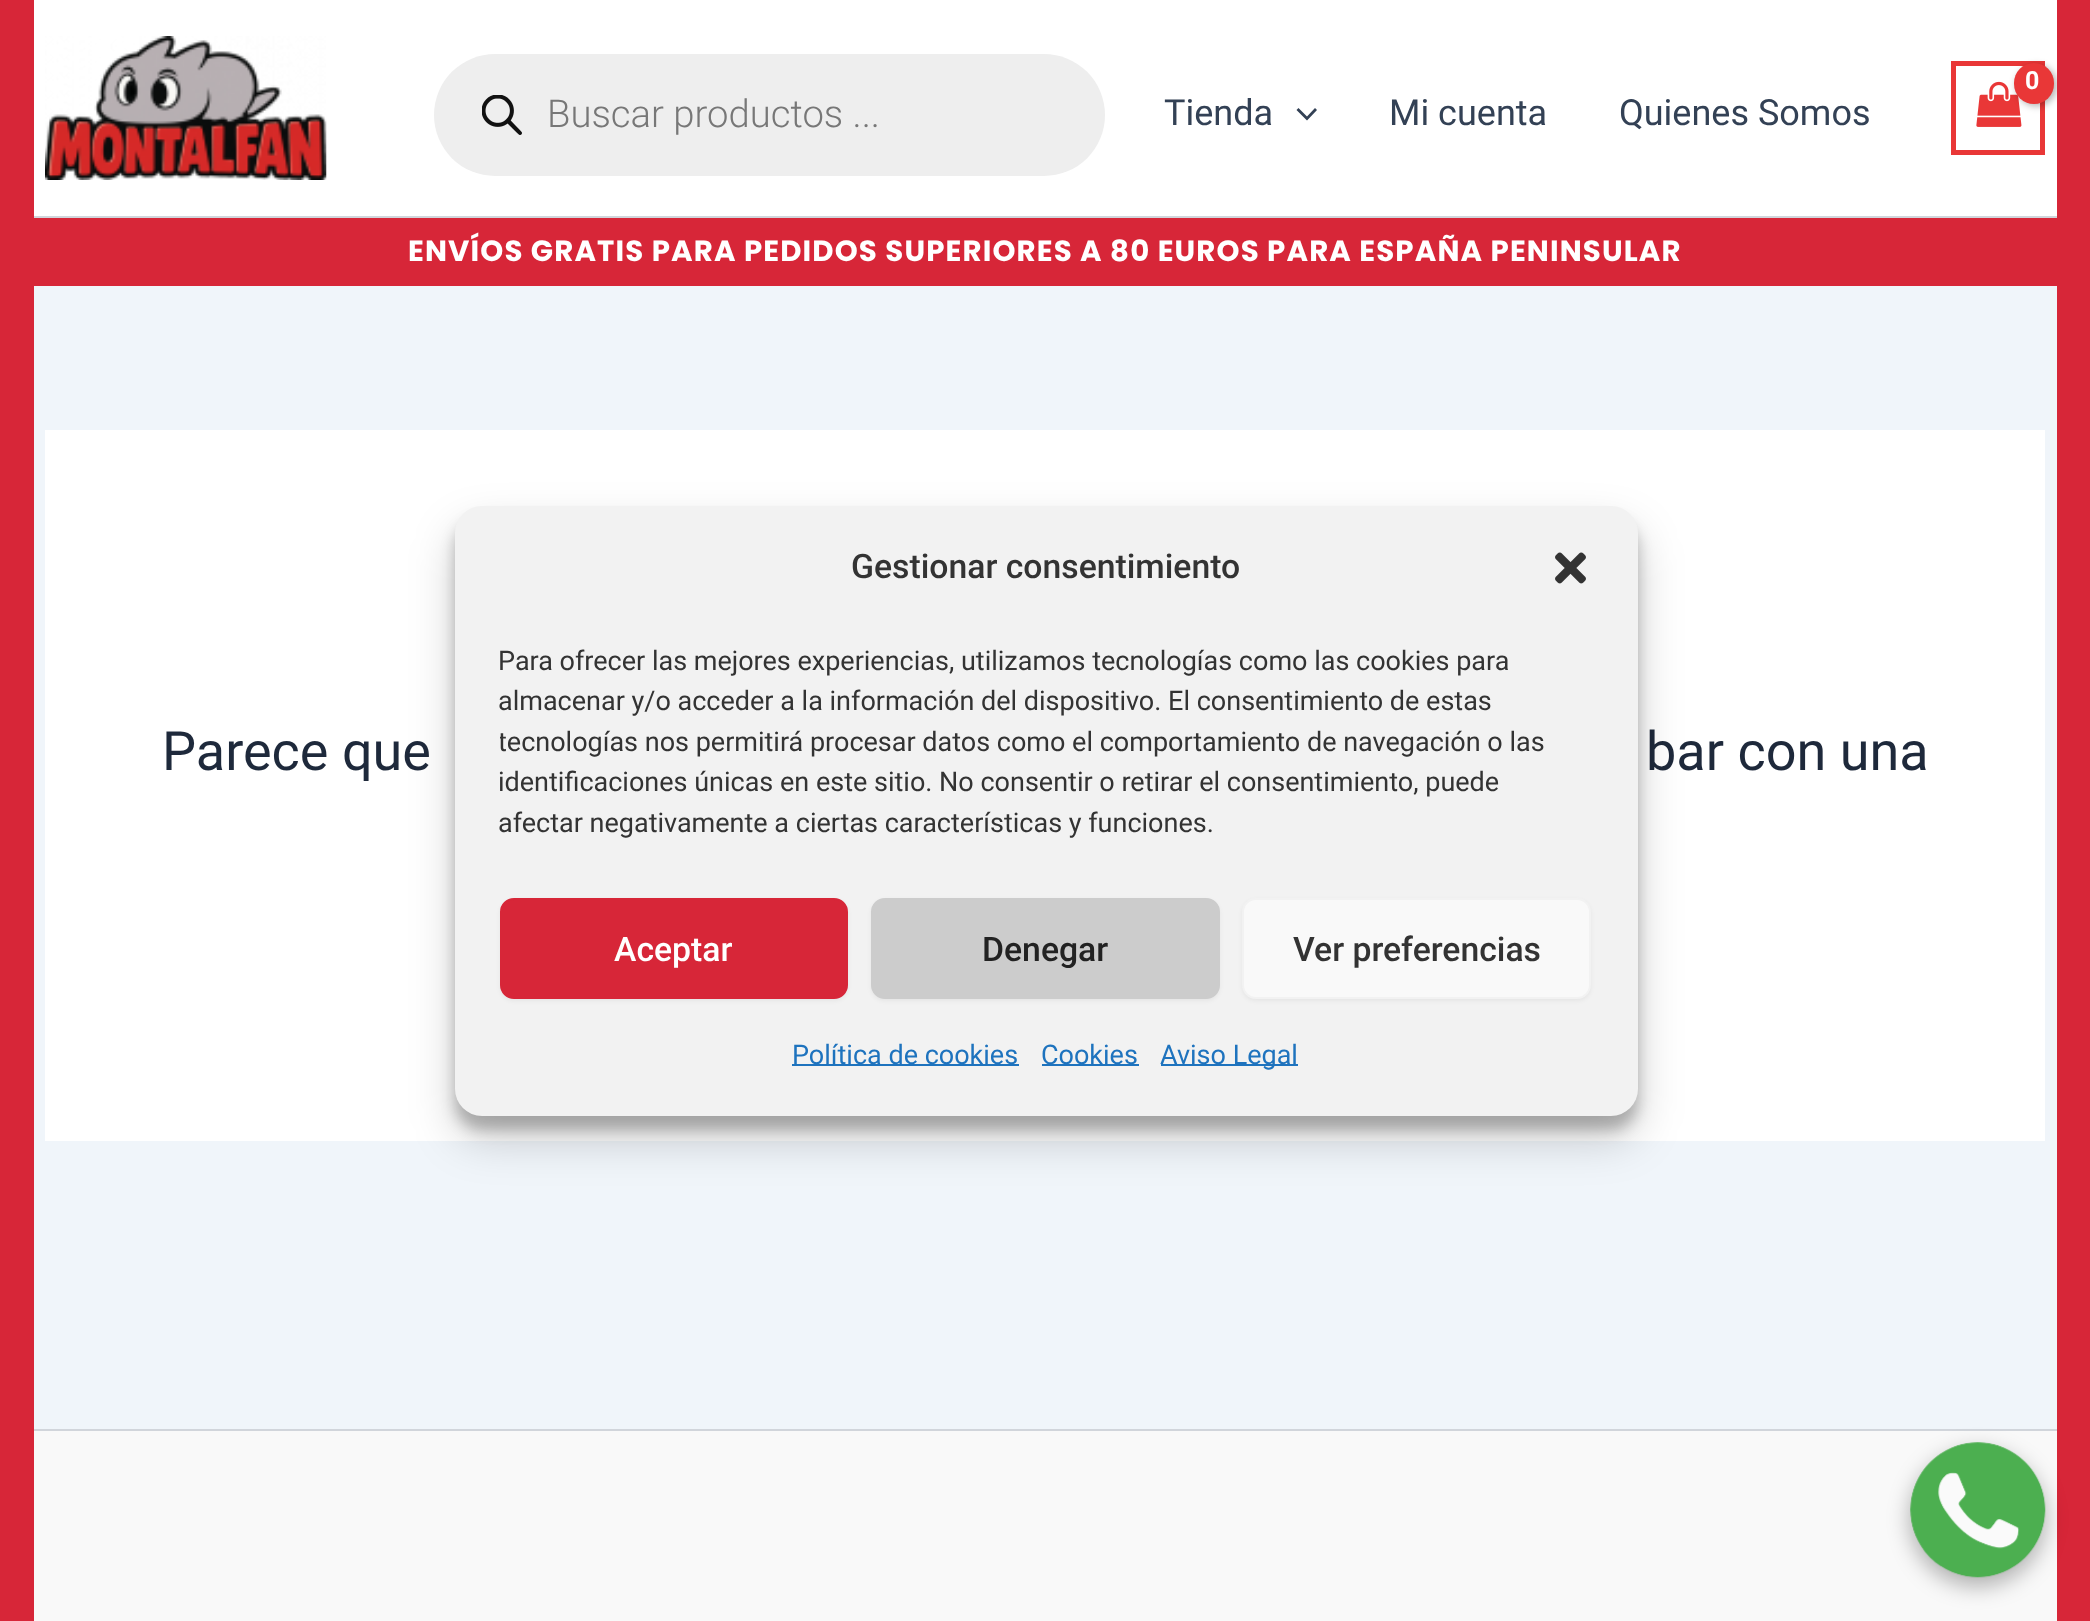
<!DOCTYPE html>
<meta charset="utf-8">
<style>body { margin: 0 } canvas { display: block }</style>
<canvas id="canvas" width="2090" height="1621"></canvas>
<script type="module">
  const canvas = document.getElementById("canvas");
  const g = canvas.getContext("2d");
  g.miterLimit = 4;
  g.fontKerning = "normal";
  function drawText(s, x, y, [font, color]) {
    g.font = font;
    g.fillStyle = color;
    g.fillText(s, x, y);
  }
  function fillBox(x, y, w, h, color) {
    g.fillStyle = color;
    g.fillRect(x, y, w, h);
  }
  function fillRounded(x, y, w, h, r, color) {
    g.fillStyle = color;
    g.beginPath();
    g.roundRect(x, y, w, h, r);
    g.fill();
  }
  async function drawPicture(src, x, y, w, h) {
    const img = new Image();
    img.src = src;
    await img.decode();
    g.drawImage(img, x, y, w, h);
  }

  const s1 = ["bold 25px Roboto", "#FFFFFF"];
  const s2 = ["300 38.25px Roboto", "#777777"];
  const s3 = ["36px Roboto", "#334155"];
  const s4 = ["bold 29.25px Poppins", "#FFFFFF"];
  const s5 = ["54px Roboto", "#1E293B"];
  const s6 = ["500 33.75px Roboto", "#333333"];
  const s7 = ["27px Roboto", "#333333"];
  const s8 = ["500 33.75px Roboto", "#FFFFFF"];
  const s9 = ["500 33.75px Roboto", "#222222"];
  const s10 = ["27px Roboto", "#1E73BE"];

  fillBox(0, 0, 2090, 1621, "#F0F5FA");
  fillBox(0, 0, 34, 1621, "#D72638");
  fillBox(34, 0, 2023, 216, "#FFFFFF");
  fillBox(34, 216, 2023, 2, "#D1D5DB");
  await drawPicture("pic1.png", 45, 36, 282, 144);
  g.strokeStyle = "#E93737";
  g.lineWidth = 5;
  g.strokeRect(1953.5, 63.5, 89, 89);
  await drawPicture("pic2.png", 1976, 81, 46, 46);
  g.fillStyle = "rgba(0, 0, 0, 0.3)";
  g.filter = "blur(3.5px)";
  g.beginPath();
  g.roundRect(2016, 65, 41, 41, 20.5);
  g.fill();
  g.filter = "none";
  fillRounded(2014, 63, 40, 41, 20, "#E93737");
  g.letterSpacing = "-1px";
  drawText("0", 2025, 89, s1);
  fillRounded(434, 54, 671, 122, 61, "#EEEEEE");
  await drawPicture("pic3.png", 482, 95, 40, 40);
  g.letterSpacing = "0px";
  drawText("Buscar productos ...", 547, 127, s2);
  drawText("Tienda", 1164, 125, s3);
  g.beginPath();
  g.moveTo(1296.5, 110);
  g.lineTo(1307, 120.5);
  g.lineTo(1317, 110);
  g.lineTo(1315, 108);
  g.lineTo(1307, 116.5);
  g.lineTo(1298.5, 108);
  g.closePath();
  g.fill();
  drawText("Mi cuenta", 1389, 125, s3);
  drawText("Quienes Somos", 1619, 125, s3);
  fillBox(34, 218, 2023, 68, "#D72638");
  g.letterSpacing = "1.12px";
  drawText("ENVÍOS GRATIS PARA PEDIDOS SUPERIORES A 80 EUROS PARA ESPAÑA PENINSULAR", 408, 261, s4);
  fillBox(45, 430, 2000, 711, "#FFFFFF");
  g.letterSpacing = "0px";
  drawText("Parece que", 162, 770, s5);
  drawText("bar con una", 1646, 770, s5);
  fillBox(34, 1431, 2023, 190, "#F9F9F9");
  fillBox(34, 1429, 2023, 2, "#D1D5DB");
  fillBox(2057, 0, 33, 1621, "#D72638");
  g.fillStyle = "rgba(0, 0, 0, 0.3)";
  g.filter = "blur(11px)";
  g.beginPath();
  g.roundRect(1910, 1451, 135, 135, 67.5);
  g.fill();
  g.filter = "none";
  await drawPicture("pic4.png", 1910, 1442, 136, 136);
  g.fillStyle = "rgba(0, 0, 0, 0.23)";
  g.filter = "blur(7px)";
  g.beginPath();
  g.roundRect(455, 520, 1183, 610, 27);
  g.fill();
  g.filter = "none";
  g.fillStyle = "rgba(0, 0, 0, 0.19)";
  g.filter = "blur(22.5px)";
  g.beginPath();
  g.roundRect(455, 529, 1183, 610, 27);
  g.fill();
  g.filter = "none";
  fillRounded(455, 506, 1183, 610, 27, "#F2F2F2");
  drawText("Gestionar consentimiento", 851, 578, s6);
  await drawPicture("pic5.png", 1555, 552, 31, 32);
  drawText("Para ofrecer las mejores experiencias, utilizamos tecnologías como las cookies para", 498, 670, s7);
  drawText("almacenar y/o acceder a la información del dispositivo. El consentimiento de estas", 498, 710, s7);
  g.save();
  g.beginPath();
  g.rect(500, 639, 1093, 214);
  g.clip();
  drawText("tecnologías nos permitirá procesar datos como el comportamiento de navegación o las", 498, 751, s7);
  g.restore();
  drawText("identificaciones únicas en este sitio. No consentir o retirar el consentimiento, puede", 498, 791, s7);
  drawText("afectar negativamente a ciertas características y funciones.", 498, 832, s7);
  g.fillStyle = "rgba(0, 0, 0, 0.05)";
  g.filter = "blur(2px)";
  g.beginPath();
  g.roundRect(500, 900, 348, 101, 14);
  g.fill();
  g.filter = "none";
  g.fillStyle = "#D72638";
  g.beginPath();
  g.roundRect(501, 899, 346, 99, 13);
  g.fill();
  g.strokeStyle = "#D72638";
  g.lineWidth = 2;
  g.stroke();
  drawText("Aceptar", 614, 961, s8);
  g.fillStyle = "rgba(0, 0, 0, 0.05)";
  g.filter = "blur(2px)";
  g.beginPath();
  g.roundRect(871, 900, 349, 101, 14);
  g.fill();
  g.filter = "none";
  g.fillStyle = "#CCCCCC";
  g.beginPath();
  g.roundRect(872, 899, 347, 99, 13);
  g.fill();
  g.strokeStyle = "#CCCCCC";
  g.stroke();
  drawText("Denegar", 982, 961, s9);
  g.fillStyle = "rgba(0, 0, 0, 0.05)";
  g.filter = "blur(2px)";
  g.beginPath();
  g.roundRect(1242, 900, 349, 101, 14);
  g.fill();
  g.filter = "none";
  g.fillStyle = "#F9F9F9";
  g.beginPath();
  g.roundRect(1243, 899, 347, 99, 13);
  g.fill();
  g.strokeStyle = "#F2F2F2";
  g.stroke();
  drawText("Ver preferencias", 1293, 961, s6);
  fillBox(792, 1064, 227, 2, "#1E73BE");
  drawText("Política de cookies", 792, 1064, s10);
  fillBox(1042, 1064, 97, 2, "#1E73BE");
  drawText("Cookies", 1041, 1064, s10);
  fillBox(1161, 1064, 137, 2, "#1E73BE");
  drawText("Aviso Legal", 1160, 1064, s10);
</script>
